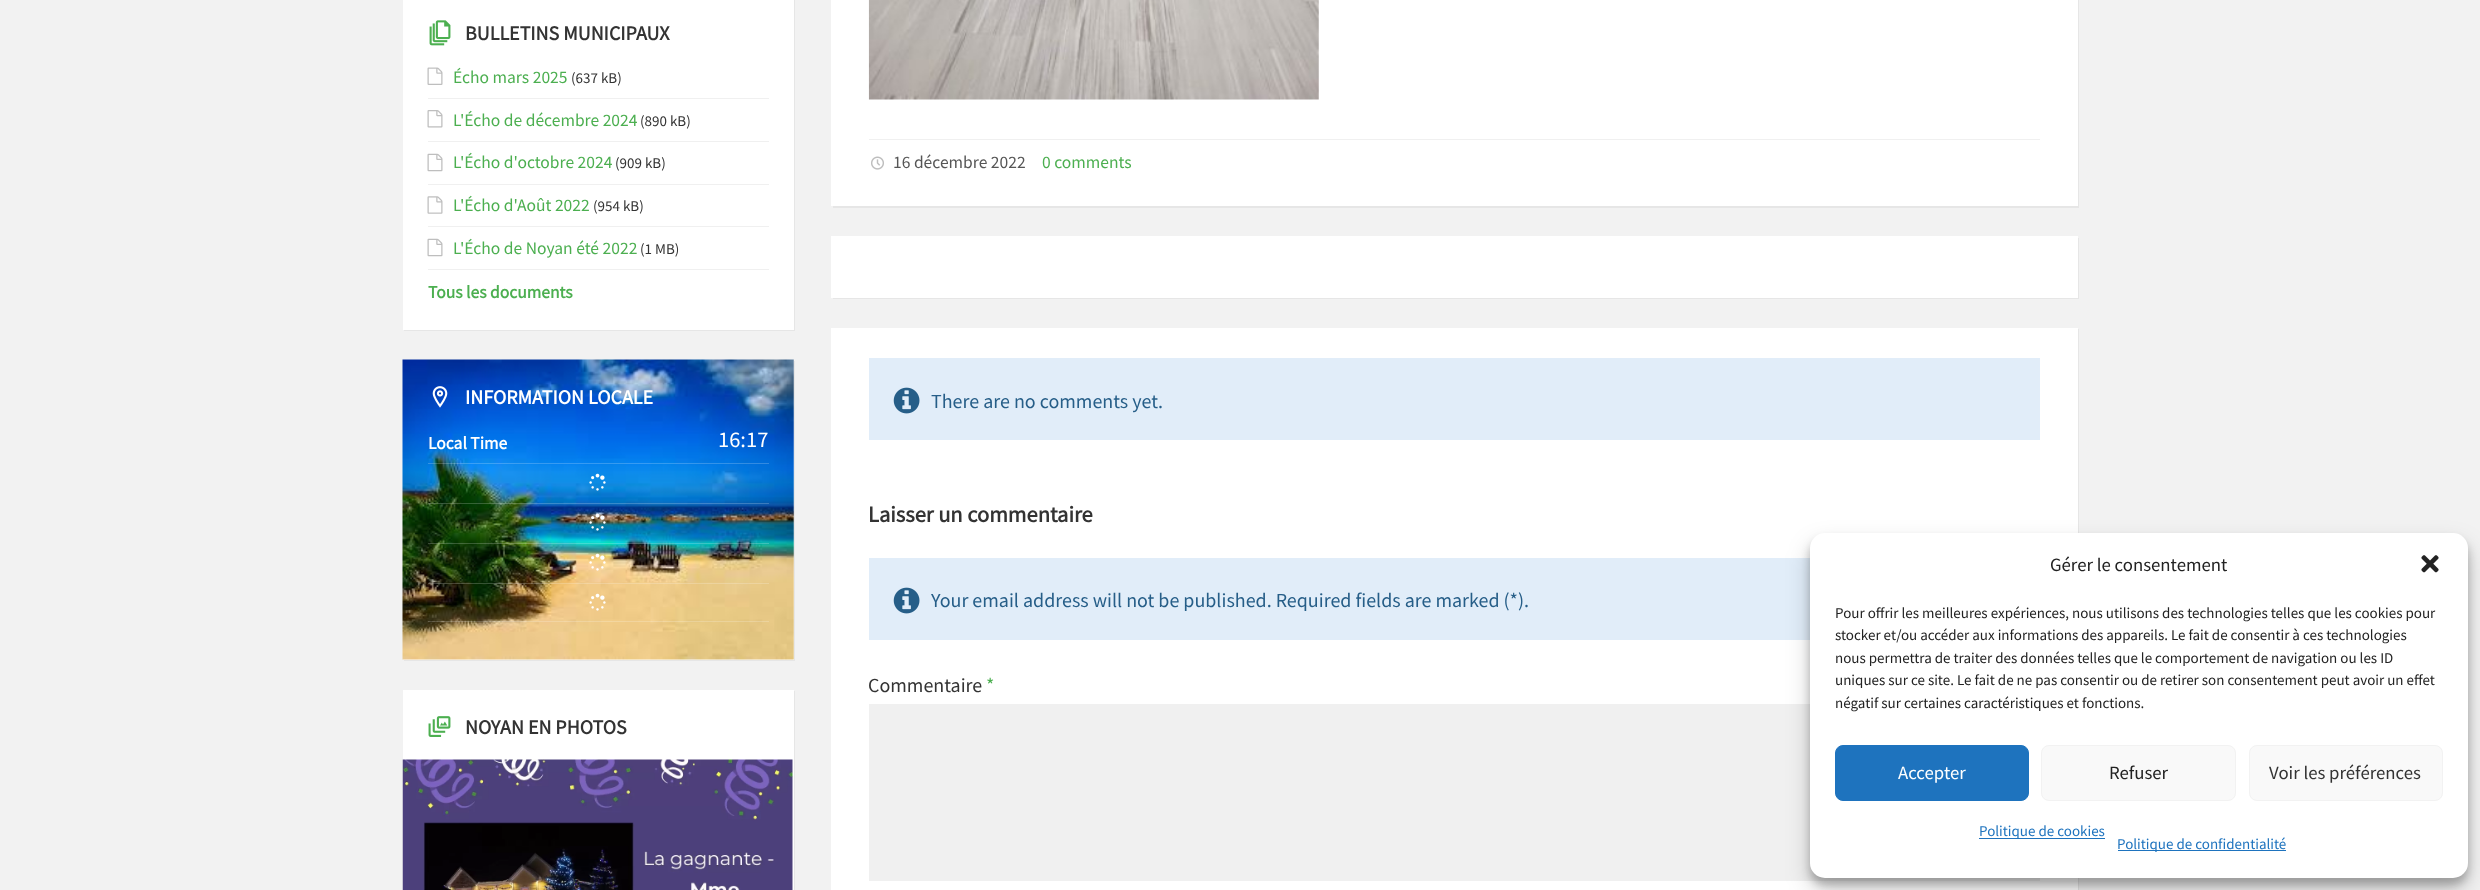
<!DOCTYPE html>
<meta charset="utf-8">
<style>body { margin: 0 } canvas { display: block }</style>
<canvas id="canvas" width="2480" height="890"></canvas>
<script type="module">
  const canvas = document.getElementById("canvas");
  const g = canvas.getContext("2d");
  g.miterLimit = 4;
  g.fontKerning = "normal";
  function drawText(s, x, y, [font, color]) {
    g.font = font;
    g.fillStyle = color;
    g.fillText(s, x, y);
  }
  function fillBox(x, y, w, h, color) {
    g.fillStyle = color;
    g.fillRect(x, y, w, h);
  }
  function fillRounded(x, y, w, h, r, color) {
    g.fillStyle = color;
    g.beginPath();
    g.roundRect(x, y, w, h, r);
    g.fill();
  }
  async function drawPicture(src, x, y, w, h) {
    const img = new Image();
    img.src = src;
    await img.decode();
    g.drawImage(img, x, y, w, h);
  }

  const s1 = ["bold 20px Source Sans Pro", "#333333"];
  const s2 = ["17.5px Source Sans Pro", "#4CAF50"];
  const s3 = ["15px Source Sans Pro", "#333333"];
  const s4 = ["bold 17.5px Source Sans Pro", "#4CAF50"];
  const s5 = ["bold 20px Source Sans Pro", "#FFFFFF"];
  const s6 = ["bold 17.5px Source Sans Pro", "#FFFFFF"];
  const s7 = ["22.5px Source Sans Pro", "#FFFFFF"];
  const s8 = ["17.5px Source Sans Pro", "#565656"];
  const s9 = ["20px Source Sans Pro", "#265E88"];
  const s10 = ["bold 22.5px Source Sans Pro", "#333333"];
  const s11 = ["20px Source Sans Pro", "#333333"];
  const s12 = ["20px Source Sans Pro", "#4CAF50"];
  const s13 = ["18.75px Source Sans Pro", "#222222"];
  const s14 = ["15px Source Sans Pro", "#222222"];
  const s15 = ["18.75px Source Sans Pro", "#FFFFFF"];
  const s16 = ["18.75px Source Sans Pro", "#333333"];
  const s17 = ["15px Source Sans Pro", "#1E73BE"];

  fillBox(0, 0, 2480, 890, "#F2F2F2");
  g.fillStyle = "#E6E6E6";
  g.beginPath();
  g.moveTo(404, 330);
  g.lineTo(404, 331);
  g.lineTo(795, 331);
  g.lineTo(795, -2);
  g.lineTo(794, -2);
  g.lineTo(794, 330);
  g.closePath();
  g.fill();
  fillBox(403, 0, 391, 330, "#FFFFFF");
  await drawPicture("pic1.png", 429, 20, 22, 26);
  drawText("BULLETINS MUNICIPAUX", 465, 40, s1);
  await drawPicture("pic2.png", 427, 67, 16, 18);
  drawText("Écho mars 2025", 453, 83, s2);
  drawText("(637 kB)", 571, 83, s3);
  fillBox(428, 98, 341, 1, "#F0F0F0");
  await drawPicture("pic3.png", 427, 110, 16, 18);
  drawText("L'Écho de décembre 2024", 453, 126, s2);
  drawText("(890 kB)", 640, 126, s3);
  fillBox(428, 141, 341, 1, "#F0F0F0");
  await drawPicture("pic4.png", 427, 153, 16, 19);
  drawText("L'Écho d'octobre 2024", 453, 168, s2);
  drawText("(909 kB)", 615, 168, s3);
  fillBox(428, 184, 341, 1, "#F0F0F0");
  await drawPicture("pic5.png", 427, 196, 16, 18);
  drawText("L'Écho d'Août 2022", 453, 211, s2);
  drawText("(954 kB)", 593, 211, s3);
  fillBox(428, 226, 341, 1, "#F0F0F0");
  await drawPicture("pic4.png", 427, 238, 16, 19);
  drawText("L'Écho de Noyan été 2022", 453, 254, s2);
  drawText("(1 MB)", 640, 254, s3);
  fillBox(428, 269, 341, 1, "#F0F0F0");
  drawText("Tous les documents", 428, 298, s4);
  g.fillStyle = "#E6E6E6";
  g.beginPath();
  g.moveTo(404, 660);
  g.lineTo(404, 661);
  g.lineTo(795, 661);
  g.lineTo(795, 361);
  g.lineTo(794, 361);
  g.lineTo(794, 660);
  g.closePath();
  g.fill();
  fillBox(403, 360, 391, 300, "#FFFFFF");
  await drawPicture("pic6.png", 402, 359, 392, 301);
  await drawPicture("pic7.png", 432, 386, 16, 22);
  drawText("INFORMATION LOCALE", 465, 404, s5);
  drawText("Local Time", 428, 449, s6);
  drawText("16:17", 718, 447, s7);
  fillBox(428, 463, 341, 1, "rgba(255, 255, 255, 0.2)");
  await drawPicture("pic8.png", 589, 473, 17, 18);
  fillBox(428, 503, 341, 1, "rgba(255, 255, 255, 0.2)");
  await drawPicture("pic9.png", 589, 513, 17, 18);
  fillBox(428, 543, 341, 1, "rgba(255, 255, 255, 0.2)");
  await drawPicture("pic10.png", 589, 553, 17, 18);
  fillBox(428, 583, 341, 1, "rgba(255, 255, 255, 0.2)");
  await drawPicture("pic11.png", 589, 593, 17, 18);
  fillBox(428, 621, 341, 1, "rgba(255, 255, 255, 0.2)");
  g.fillStyle = "#E6E6E6";
  g.beginPath();
  g.moveTo(404, 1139);
  g.lineTo(404, 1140);
  g.lineTo(795, 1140);
  g.lineTo(795, 691);
  g.lineTo(794, 691);
  g.lineTo(794, 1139);
  g.closePath();
  g.fill();
  fillBox(403, 690, 391, 200, "#FFFFFF");
  await drawPicture("pic12.png", 428, 716, 23, 21);
  drawText("NOYAN EN PHOTOS", 465, 734, s1);
  await drawPicture("pic13.png", 402, 759, 391, 131);
  g.fillStyle = "#E6E6E6";
  g.beginPath();
  g.moveTo(833, 206);
  g.lineTo(833, 208);
  g.lineTo(2079, 208);
  g.lineTo(2079, -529);
  g.lineTo(2078, -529);
  g.lineTo(2078, 206);
  g.closePath();
  g.fill();
  fillBox(831, 0, 1247, 206, "#FFFFFF");
  await drawPicture("pic14.png", 868, 0, 451, 100);
  fillBox(869, 139, 1171, 1, "#F0F0F0");
  await drawPicture("pic15.png", 871, 156, 13, 14);
  drawText("16 décembre 2022", 893, 168, s8);
  drawText("0 comments", 1042, 168, s2);
  g.fillStyle = "#E6E6E6";
  g.beginPath();
  g.moveTo(833, 298);
  g.lineTo(833, 299);
  g.lineTo(2079, 299);
  g.lineTo(2079, 238);
  g.lineTo(2078, 238);
  g.lineTo(2078, 298);
  g.closePath();
  g.fill();
  fillBox(831, 236, 1247, 62, "#FFFFFF");
  g.fillStyle = "#E6E6E6";
  g.beginPath();
  g.moveTo(833, 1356);
  g.lineTo(833, 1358);
  g.lineTo(2079, 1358);
  g.lineTo(2079, 329);
  g.lineTo(2078, 329);
  g.lineTo(2078, 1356);
  g.closePath();
  g.fill();
  fillBox(831, 328, 1247, 562, "#FFFFFF");
  fillBox(869, 358, 1171, 82, "#E1EDF9");
  await drawPicture("pic16.png", 893, 387, 27, 27);
  drawText("There are no comments yet.", 931, 408, s9);
  drawText("Laisser un commentaire", 868, 522, s10);
  fillBox(869, 558, 941, 82, "#E1EDF9");
  await drawPicture("pic16.png", 893, 587, 27, 27);
  drawText("Your email address will not be published. Required fields are marked (*).", 931, 607, s9);
  drawText("Commentaire", 868, 692, s11);
  drawText("*", 986, 692, s12);
  fillBox(869, 704, 1171, 177, "#F0F0F0");
  g.fillStyle = "rgba(0, 0, 0, 0.23)";
  g.filter = "blur(4px)";
  g.beginPath();
  g.roundRect(1810, 540, 658, 345, 15);
  g.fill();
  g.filter = "none";
  g.fillStyle = "rgba(0, 0, 0, 0.19)";
  g.filter = "blur(12.5px)";
  g.beginPath();
  g.roundRect(1810, 545, 658, 345, 15);
  g.fill();
  g.filter = "none";
  fillRounded(1810, 533, 658, 345, 15, "#FFFFFF");
  drawText("Gérer le consentement", 2050, 571, s13);
  await drawPicture("pic17.png", 2421, 555, 18, 18);
  drawText("Pour offrir les meilleures expériences, nous utilisons des technologies telles que les cookies pour", 1835, 618, s14);
  drawText("stocker et/ou accéder aux informations des appareils. Le fait de consentir à ces technologies", 1835, 640, s14);
  drawText("nous permettra de traiter des données telles que le comportement de navigation ou les ID", 1835, 663, s14);
  drawText("uniques sur ce site. Le fait de ne pas consentir ou de retirer son consentement peut avoir un effet", 1835, 685, s14);
  drawText("négatif sur certaines caractéristiques et fonctions.", 1835, 708, s14);
  g.fillStyle = "#1E73BE";
  g.beginPath();
  g.roundRect(1835.5, 745.5, 193, 55, 7.5);
  g.fill();
  g.strokeStyle = "#1E73BE";
  g.stroke();
  drawText("Accepter", 1898, 779, s15);
  g.fillStyle = "#F9F9F9";
  g.beginPath();
  g.roundRect(2041.5, 745.5, 194, 55, 7.5);
  g.fill();
  g.strokeStyle = "#F2F2F2";
  g.stroke();
  drawText("Refuser", 2109, 779, s13);
  g.fillStyle = "#F9F9F9";
  g.beginPath();
  g.roundRect(2249.5, 745.5, 193, 55, 7.5);
  g.fill();
  g.stroke();
  drawText("Voir les préférences", 2269, 779, s16);
  fillBox(1979, 838, 126, 1, "#1E73BE");
  drawText("Politique de cookies", 1979, 836, s17);
  fillBox(2118, 850, 168, 1, "#1E73BE");
  drawText("Politique de confidentialité", 2117, 849, s17);
</script>
